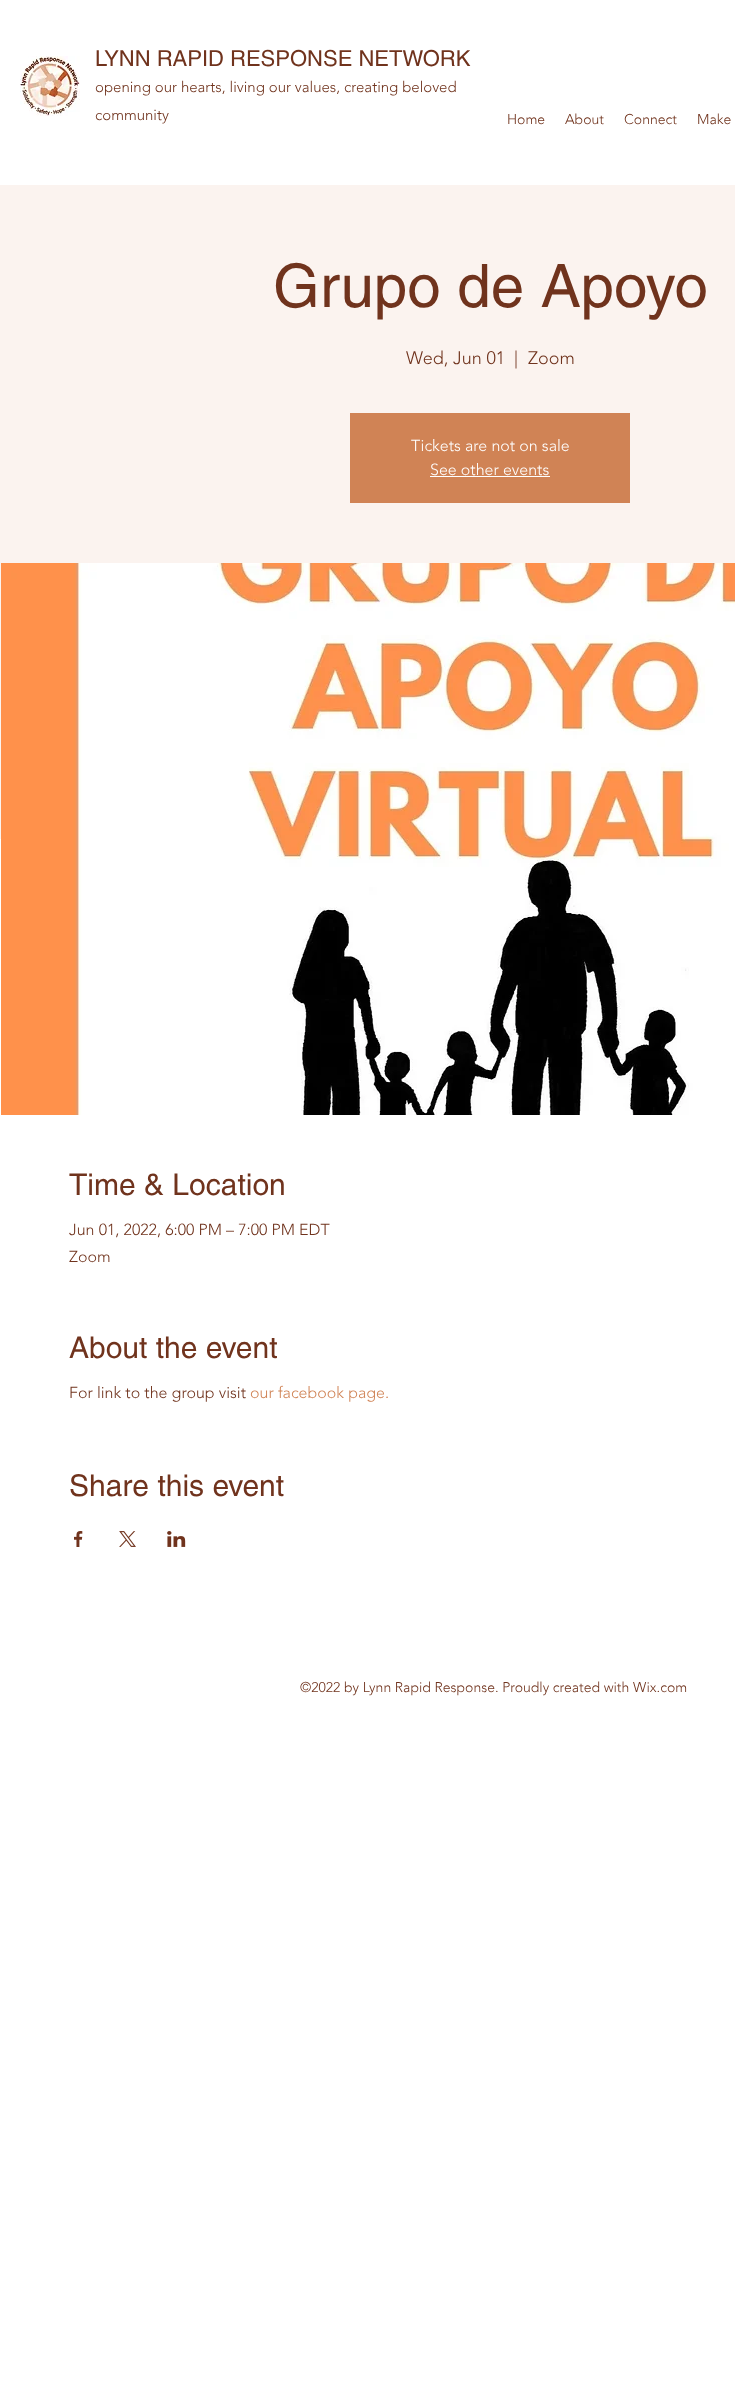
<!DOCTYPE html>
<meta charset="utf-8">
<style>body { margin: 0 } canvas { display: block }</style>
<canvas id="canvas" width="735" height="2404"></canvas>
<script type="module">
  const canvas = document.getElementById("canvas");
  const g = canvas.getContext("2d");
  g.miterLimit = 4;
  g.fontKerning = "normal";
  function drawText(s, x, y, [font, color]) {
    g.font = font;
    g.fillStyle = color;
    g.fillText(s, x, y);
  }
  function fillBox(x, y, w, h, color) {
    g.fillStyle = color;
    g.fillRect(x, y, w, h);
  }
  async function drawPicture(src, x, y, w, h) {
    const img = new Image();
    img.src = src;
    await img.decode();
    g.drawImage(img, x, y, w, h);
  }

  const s1 = ["22px helvetica", "#70331D"];
  const s2 = ["300 15px 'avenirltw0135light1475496'", "#70331D"];
  const s3 = ["300 14px 'avenirltw0135light1475496'", "#70331D"];
  const s4 = ["60px helvetica", "#70331D"];
  const s5 = ["300 18px 'avenirltw0135light1475496'", "#70331D"];
  const s6 = ["300 16px 'avenirltw0135light1475496'", "#FFFFFF"];
  const s7 = ["30px helvetica", "#70331D"];
  const s8 = ["300 16px 'avenirltw0135light1475496'", "#70331D"];
  const s9 = ["300 16px 'avenirltw0135light1475496'", "#D08355"];

  fillBox(0, 0, 735, 2404, "#FFFFFF");
  await drawPicture("pic1.png", 20, 56, 60, 60);
  drawText("LYNN RAPID RESPONSE NETWORK", 95, 66, s1);
  drawText("opening our hearts, living our values, creating beloved", 95, 92, s2);
  drawText("community", 95, 120, s2);
  drawText("Home", 507, 124, s3);
  drawText("About", 565, 124, s3);
  drawText("Connect", 624, 124, s3);
  drawText("Make", 697, 124, s3);
  fillBox(0, 185, 735, 654, "#FBF3EF");
  drawText("Grupo de Apoyo", 273, 307, s4);
  drawText("Wed, Jun 01", 406, 364, s5);
  drawText("|", 514, 364, s5);
  drawText("Zoom", 528, 364, s5);
  fillBox(350, 413, 280, 90, "#D08355");
  drawText("Tickets are not on sale", 411, 451, s6);
  drawText("See other events", 430, 475, s6);
  fillBox(430, 476, 120, 1, "#FFFFFF");
  await drawPicture("pic2.png", 1, 563, 734, 552);
  drawText("Time & Location", 69, 1195, s7);
  drawText("Jun 01, 2022, 6:00 PM – 7:00 PM EDT", 69, 1235, s8);
  drawText("Zoom", 69, 1262, s8);
  drawText("About the event", 69, 1358, s7);
  drawText("For link to the group visit", 69, 1398, s8);
  drawText("our facebook page.", 250, 1398, s9);
  drawText("Share this event", 69, 1496, s7);
  await drawPicture("pic3.png", 74, 1531, 9, 16);
  await drawPicture("pic4.png", 119, 1531, 17, 16);
  await drawPicture("pic5.png", 167, 1531, 19, 16);
  drawText("©2022 by Lynn Rapid Response. Proudly created with Wix.com", 300, 1692, s3);
</script>
